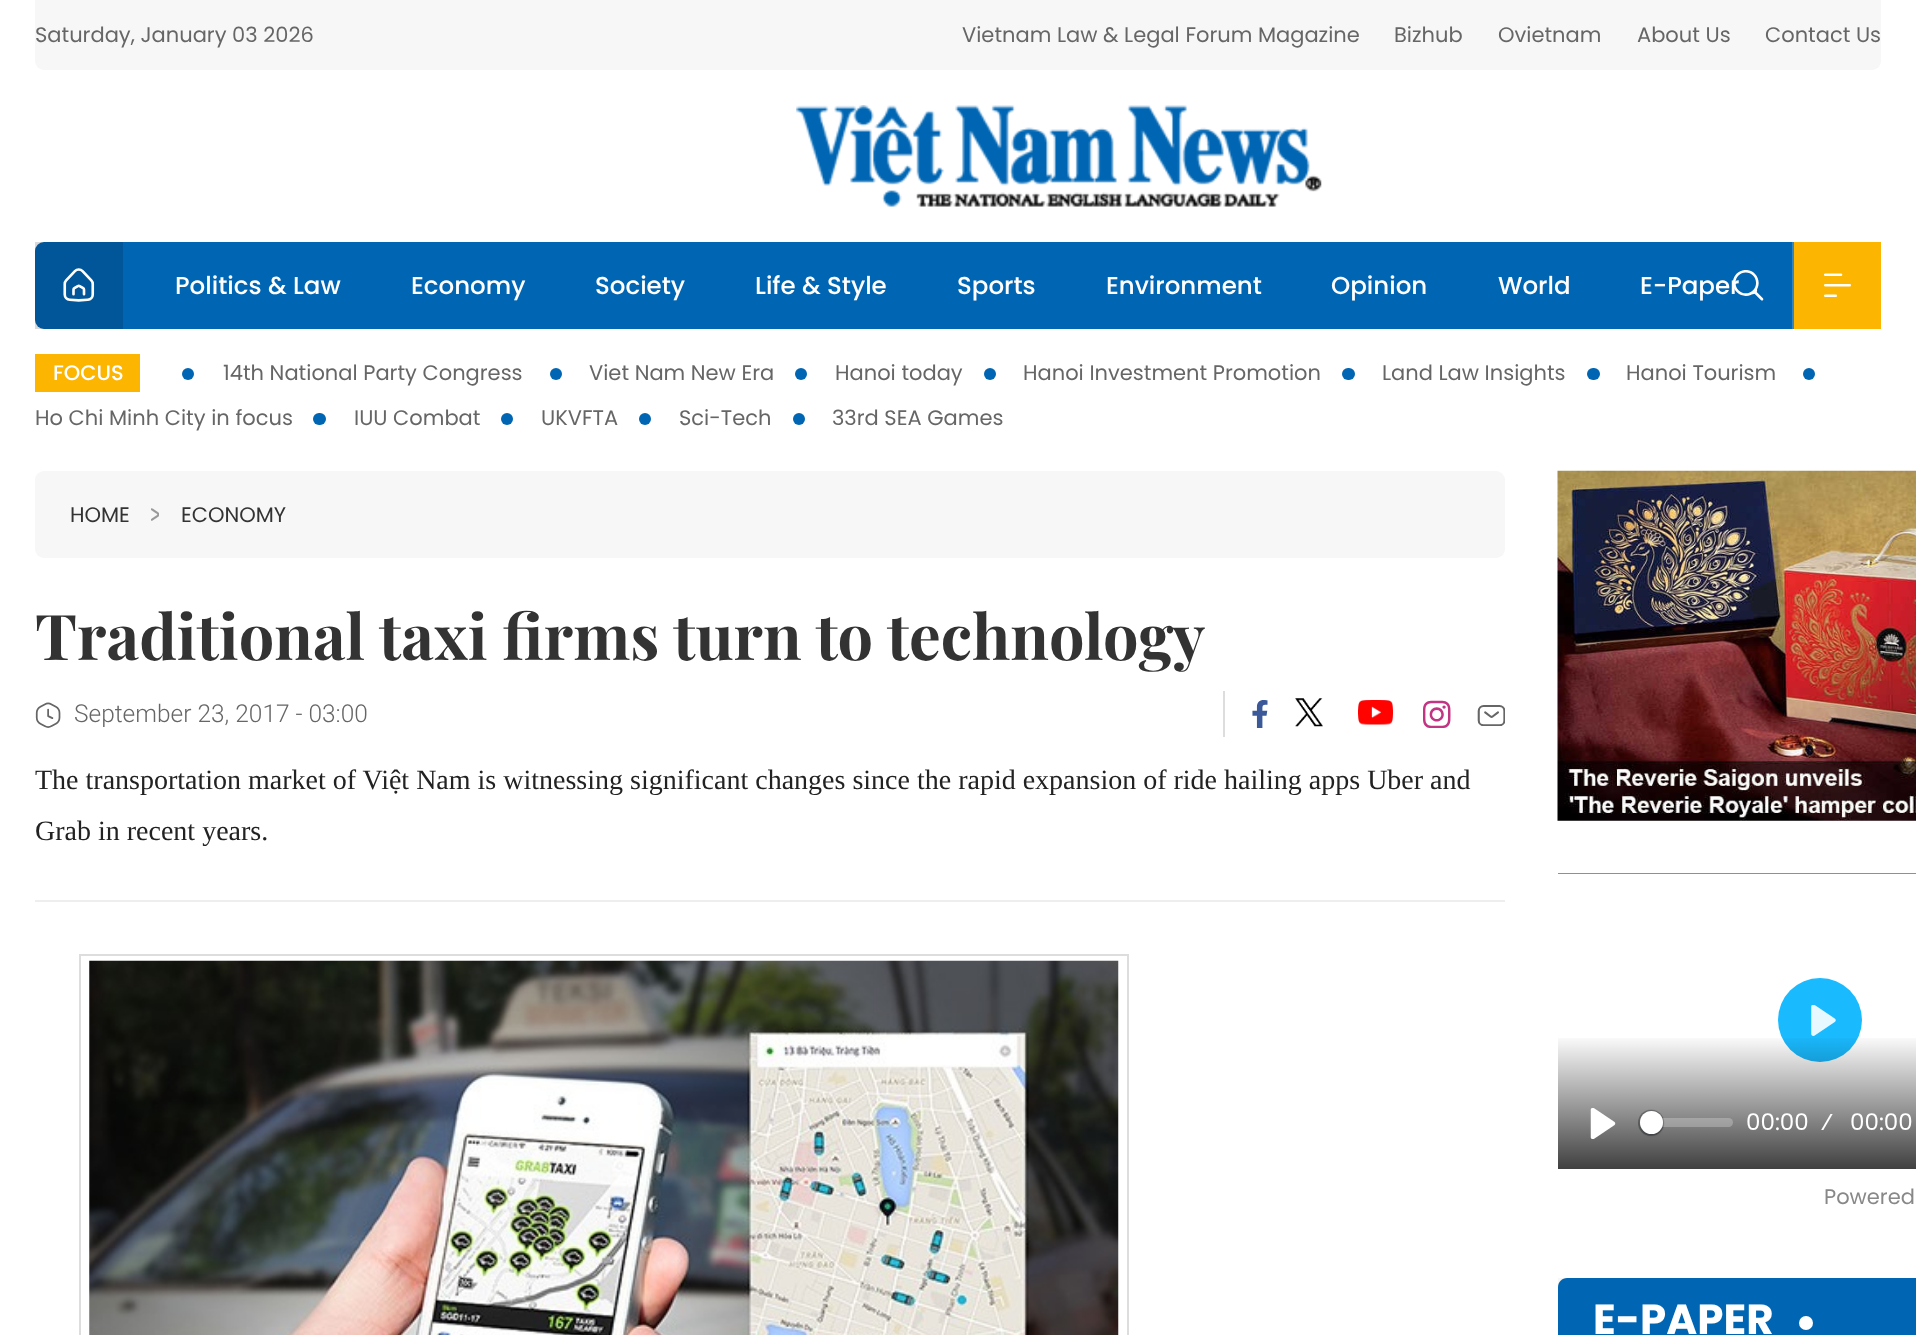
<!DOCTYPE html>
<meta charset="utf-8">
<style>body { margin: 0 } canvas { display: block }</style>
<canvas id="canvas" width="1916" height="1335"></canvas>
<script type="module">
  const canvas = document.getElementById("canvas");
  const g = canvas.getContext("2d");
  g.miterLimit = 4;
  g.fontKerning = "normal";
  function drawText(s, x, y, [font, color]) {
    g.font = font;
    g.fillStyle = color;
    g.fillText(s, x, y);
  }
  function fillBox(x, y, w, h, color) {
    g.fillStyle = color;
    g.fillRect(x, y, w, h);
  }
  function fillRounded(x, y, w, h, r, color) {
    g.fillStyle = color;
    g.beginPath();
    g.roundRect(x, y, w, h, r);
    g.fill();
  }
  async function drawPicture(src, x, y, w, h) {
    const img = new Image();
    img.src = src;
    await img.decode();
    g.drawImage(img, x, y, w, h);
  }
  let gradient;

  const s1 = ["21px Poppins", "#666666"];
  const s2 = ["500 24.5px Poppins", "#FFFFFF"];
  const s3 = ["500 21px Poppins", "#FFFFFF"];
  const s4 = ["21px Poppins", "#333333"];
  const s5 = ["bold 63px Playfair Display", "#333333"];
  const s6 = ["300 24.5px Roboto", "#666666"];
  const s7 = ["28px Liberation Serif", "#222222"];
  const s8 = ["23px Poppins", "#FFFFFF"];
  const s9 = ["21px Poppins", "#888888"];
  const s10 = ["bold 42px Poppins", "#FFFFFF"];

  fillBox(0, 0, 1916, 1335, "#FFFFFF");
  g.fillStyle = "#F7F7F7";
  g.beginPath();
  g.roundRect(35, 0, 1846, 70, [0, 0, 9, 9]);
  g.fill();
  drawText("Saturday, January 03 2026", 35, 42, s1);
  drawText("Vietnam Law & Legal Forum Magazine", 962, 42, s1);
  drawText("Bizhub", 1394, 42, s1);
  drawText("Ovietnam", 1498, 42, s1);
  drawText("About Us", 1637, 42, s1);
  drawText("Contact Us", 1765, 42, s1);
  await drawPicture("pic1.png", 796, 105, 526, 102);
  fillRounded(35, 242, 1846, 87, 9, "#0066B3");
  fillBox(35, 242, 88, 87, "rgba(0, 0, 0, 0.15)");
  await drawPicture("pic2.png", 63, 268, 32, 34);
  drawText("Politics & Law", 175, 294, s2);
  drawText("Economy", 411, 294, s2);
  drawText("Society", 595, 294, s2);
  drawText("Life & Style", 755, 294, s2);
  drawText("Sports", 957, 294, s2);
  drawText("Environment", 1106, 294, s2);
  drawText("Opinion", 1331, 294, s2);
  drawText("World", 1498, 294, s2);
  drawText("E-Paper", 1640, 294, s2);
  fillBox(1792, 242, 2, 87, "#3385C2");
  await drawPicture("pic3.png", 1733, 270, 31, 31);
  fillBox(1794, 242, 87, 87, "#FCB500");
  await drawPicture("pic4.png", 1824, 273, 27, 24);
  fillBox(35, 354, 105, 38, "#FCB500");
  drawText("FOCUS", 53, 380, s3);
  g.fillStyle = "#0066B3";
  g.beginPath();
  g.arc(188, 374, 6, 0, Math.PI * 2);
  g.fill();
  drawText("14th National Party Congress", 223, 380, s1);
  g.fillStyle = "#0066B3";
  g.beginPath();
  g.arc(556, 374, 6, 0, Math.PI * 2);
  g.fill();
  drawText("Viet Nam New Era", 589, 380, s1);
  g.fillStyle = "#0066B3";
  g.beginPath();
  g.arc(801, 374, 6, 0, Math.PI * 2);
  g.fill();
  drawText("Hanoi today", 835, 380, s1);
  g.fillStyle = "#0066B3";
  g.beginPath();
  g.arc(990, 374, 6, 0, Math.PI * 2);
  g.fill();
  drawText("Hanoi Investment Promotion", 1023, 380, s1);
  fillRounded(1342, 368, 13, 12, 6, "#0066B3");
  drawText("Land Law Insights", 1382, 380, s1);
  fillRounded(1587, 368, 13, 12, 6, "#0066B3");
  drawText("Hanoi Tourism", 1626, 380, s1);
  g.fillStyle = "#0066B3";
  g.beginPath();
  g.arc(1809, 374, 6, 0, Math.PI * 2);
  g.fill();
  drawText("Ho Chi Minh City in focus", 35, 425, s1);
  fillRounded(313, 413, 13, 12, 6, "#0066B3");
  drawText("IUU Combat", 354, 425, s1);
  g.fillStyle = "#0066B3";
  g.beginPath();
  g.arc(507, 419, 6, 0, Math.PI * 2);
  g.fill();
  drawText("UKVFTA", 541, 425, s1);
  g.fillStyle = "#0066B3";
  g.beginPath();
  g.arc(645, 419, 6, 0, Math.PI * 2);
  g.fill();
  drawText("Sci-Tech", 679, 425, s1);
  g.fillStyle = "#0066B3";
  g.beginPath();
  g.arc(799, 419, 6, 0, Math.PI * 2);
  g.fill();
  drawText("33rd SEA Games", 832, 425, s1);
  fillRounded(35, 471, 1470, 87, 9, "#F7F7F7");
  drawText("HOME", 70, 522, s4);
  await drawPicture("pic5.png", 151, 508, 8, 13);
  drawText("ECONOMY", 181, 522, s4);
  fillBox(35, 900, 1470, 2, "#EEEEEE");
  drawText("Traditional taxi firms turn to technology", 35, 660, s5);
  await drawPicture("pic6.png", 35, 702, 26, 26);
  drawText("September 23, 2017 - 03:00", 74, 722, s6);
  fillBox(1223, 691, 2, 46, "#DDDDDD");
  await drawPicture("pic7.png", 1252, 700, 16, 28);
  await drawPicture("pic8.png", 1295, 698, 28, 29);
  await drawPicture("pic9.png", 1358, 700, 35, 25);
  await drawPicture("pic10.png", 1423, 700, 28, 28);
  await drawPicture("pic11.png", 1477, 705, 28, 21);
  drawText("The transportation market of Việt Nam is witnessing significant changes since the rapid expansion of ride hailing apps Uber and", 35, 789, s7);
  drawText("Grab in recent years.", 35, 840, s7);
  fillBox(79, 954, 1050, 2, "#DDDDDD");
  fillBox(1127, 954, 2, 381, "#DDDDDD");
  fillBox(79, 954, 2, 381, "#DDDDDD");
  await drawPicture("pic12.png", 89, 960, 1030, 375);
  await drawPicture("pic13.png", 1557, 470, 359, 351);
  fillBox(1558, 873, 358, 1, "#000000");
  await drawPicture("pic14.png", 1558, 873, 358, 296);
  g.fillStyle = "#1ABAFF";
  g.beginPath();
  g.arc(1820, 1020, 42, 0, Math.PI * 2);
  g.fill();
  await drawPicture("pic15.png", 1811, 1005, 25, 31);
  gradient = g.createLinearGradient(1820, 1034, 1820, 1169);
  gradient.addColorStop(0, "rgba(0, 0, 0, 0)");
  gradient.addColorStop(1, "rgba(0, 0, 0, 0.75)");
  g.fillStyle = gradient;
  g.fillRect(1558, 1038, 358, 131);
  await drawPicture("pic16.png", 1590, 1108, 26, 31);
  fillRounded(1640, 1118, 93, 9, 4.5, "rgba(255, 255, 255, 0.25)");
  g.beginPath();
  g.arc(1651, 1123, 12, 0, Math.PI * 2);
  g.strokeStyle = "rgba(35, 40, 47, 0.2)";
  g.lineWidth = 2;
  g.stroke();
  g.fillStyle = "rgba(35, 40, 47, 0.15)";
  g.filter = "blur(1px)";
  g.beginPath();
  g.roundRect(1640, 1113, 23, 23, 11.5);
  g.fill();
  g.filter = "none";
  g.fillStyle = "#FFFFFF";
  g.beginPath();
  g.arc(1651.5, 1122.5, 11.5, 0, Math.PI * 2);
  g.fill();
  drawText("00:00", 1746, 1130, s8);
  drawText("⁄", 1821, 1130, s8);
  drawText("00:00", 1850, 1130, s8);
  drawText("Powered", 1824, 1204, s9);
  fillBox(1558, 1278, 9, 9, "#F7F7F7");
  g.fillStyle = "#0066B3";
  g.beginPath();
  g.moveTo(1567, 1278);
  g.lineTo(1916, 1278);
  g.bezierCurveTo(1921, 1278, 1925, 1282, 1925, 1287);
  g.lineTo(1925, 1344);
  g.lineTo(1558, 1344);
  g.lineTo(1558, 1287);
  g.bezierCurveTo(1558, 1282, 1562, 1278, 1567, 1278);
  g.closePath();
  g.fill();
  drawText("E-PAPER", 1593, 1334, s10);
  g.beginPath();
  g.arc(1806, 1323, 7, 0, Math.PI * 2);
  g.fill();
</script>
